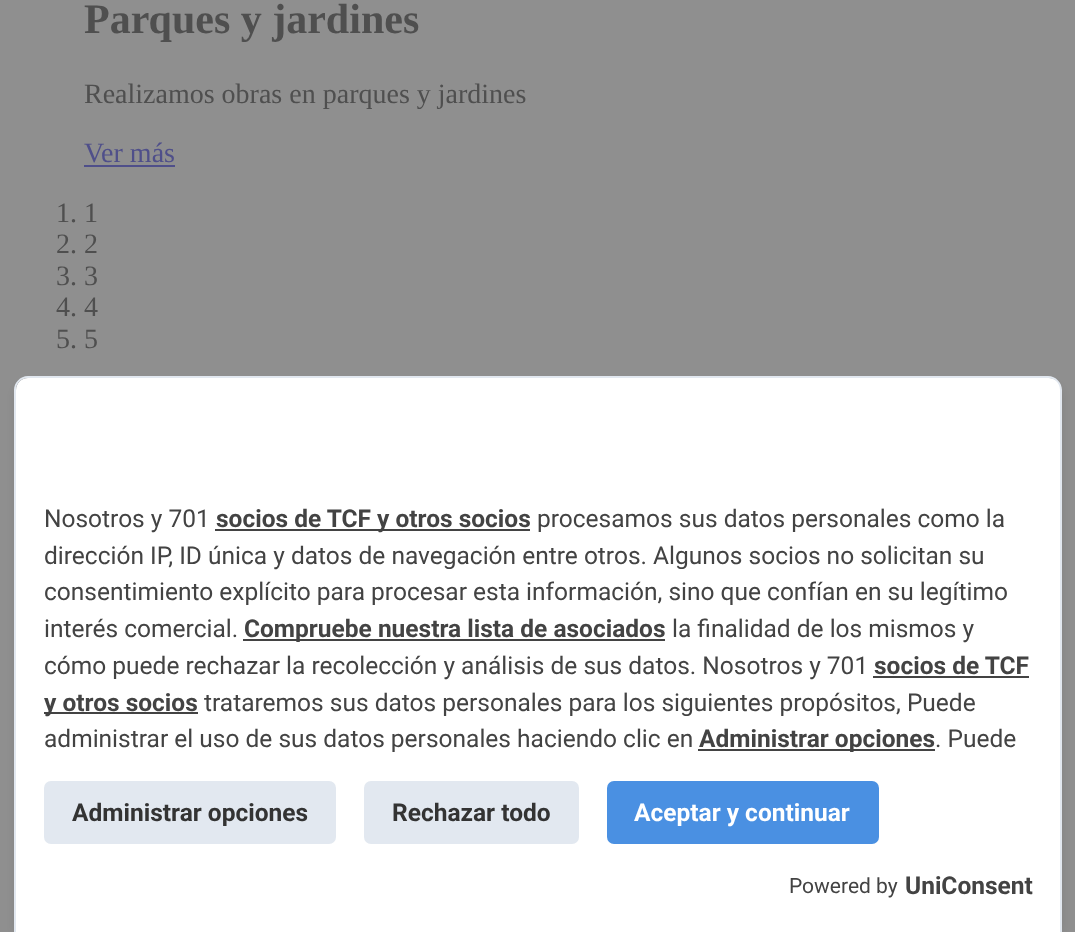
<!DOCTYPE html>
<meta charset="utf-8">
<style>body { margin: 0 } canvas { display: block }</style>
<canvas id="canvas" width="1075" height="932"></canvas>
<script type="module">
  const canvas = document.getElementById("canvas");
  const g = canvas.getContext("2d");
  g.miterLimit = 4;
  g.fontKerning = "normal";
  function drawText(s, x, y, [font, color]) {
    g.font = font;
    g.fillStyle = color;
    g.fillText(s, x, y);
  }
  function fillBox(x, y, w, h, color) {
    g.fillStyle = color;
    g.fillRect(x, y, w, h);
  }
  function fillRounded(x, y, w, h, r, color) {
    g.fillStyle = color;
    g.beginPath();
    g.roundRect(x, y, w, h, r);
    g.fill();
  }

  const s1 = ["bold 42px Liberation Serif", "#4F4F4F"];
  const s2 = ["28px Liberation Serif", "#4F4F4F"];
  const s3 = ["28px Liberation Serif", "#4F4F8A"];
  const s4 = ["24.5px Roboto", "#434343"];
  const s5 = ["bold 24.5px Roboto", "#434343"];
  const s6 = ["bold 24.5px Roboto", "#333333"];
  const s7 = ["bold 24.5px Roboto", "#FFFFFF"];
  const s8 = ["21px Roboto", "#434343"];

  fillBox(0, 0, 1075, 932, "#8F8F8F");
  drawText("Parques y jardines", 84, 33, s1);
  drawText("Realizamos obras en parques y jardines", 84, 103, s2);
  drawText("Ver más", 84, 162, s3);
  fillBox(84, 165, 91, 2, "#4F4F8A");
  drawText("1. 1", 56, 222, s2);
  drawText("2. 2", 56, 253, s2);
  drawText("3. 3", 56, 285, s2);
  drawText("4. 4", 56, 316, s2);
  drawText("5. 5", 56, 348, s2);
  g.fillStyle = "rgba(0, 0, 0, 0.1)";
  g.filter = "blur(5px)";
  g.beginPath();
  g.roundRect(16, 385, 1045, 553, 12);
  g.fill();
  g.filter = "none";
  g.fillStyle = "#FFFFFF";
  g.beginPath();
  g.moveTo(28, 378);
  g.lineTo(1049, 378);
  g.bezierCurveTo(1055.5, 378, 1061, 383.5, 1061, 390);
  g.lineTo(1061, 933);
  g.lineTo(16, 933);
  g.lineTo(16, 390);
  g.bezierCurveTo(16, 383.5, 21.5, 378, 28, 378);
  g.closePath();
  g.fill();
  g.fillStyle = "#E2E8F0";
  g.beginPath();
  g.moveTo(28, 376);
  g.lineTo(1048, 376);
  g.bezierCurveTo(1056, 376, 1062, 383, 1062, 390);
  g.lineTo(1062, 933);
  g.lineTo(14, 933);
  g.lineTo(14, 390);
  g.bezierCurveTo(14, 383, 20, 376, 28, 376);
  g.closePath();
  g.moveTo(28, 378);
  g.lineTo(1048, 378);
  g.bezierCurveTo(1055, 378, 1060, 383, 1060, 390);
  g.lineTo(1060, 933);
  g.lineTo(16, 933);
  g.lineTo(16, 390);
  g.bezierCurveTo(16, 383, 21, 378, 28, 378);
  g.closePath();
  g.fill("evenodd");
  drawText("Nosotros y 701", 44, 527, s4);
  fillBox(215, 529, 315, 2, "#434343");
  drawText("socios de TCF y otros socios", 216, 527, s5);
  drawText("procesamos sus datos personales como la", 537, 527, s4);
  drawText("dirección IP, ID única y datos de navegación entre otros. Algunos socios no solicitan su", 44, 564, s4);
  drawText("consentimiento explícito para procesar esta información, sino que confían en su legítimo", 44, 600, s4);
  drawText("interés comercial.", 44, 637, s4);
  fillBox(243, 639, 422, 2, "#434343");
  drawText("Compruebe nuestra lista de asociados", 244, 637, s5);
  drawText("la finalidad de los mismos y", 672, 637, s4);
  drawText("cómo puede rechazar la recolección y análisis de sus datos. Nosotros y 701", 44, 674, s4);
  drawText("socios de TCF", 874, 674, s5);
  fillBox(873, 676, 156, 2, "#434343");
  fillBox(44, 712, 154, 2, "#434343");
  drawText("y otros socios", 44, 711, s5);
  drawText("trataremos sus datos personales para los siguientes propósitos, Puede", 204, 711, s4);
  drawText("administrar el uso de sus datos personales haciendo clic en", 44, 747, s4);
  fillBox(698, 749, 237, 2, "#434343");
  drawText("Administrar opciones", 699, 747, s5);
  drawText(". Puede", 935, 747, s4);
  fillRounded(44, 781, 292, 63, 7, "#E2E8F0");
  drawText("Administrar opciones", 72, 821, s6);
  fillRounded(364, 781, 215, 63, 7, "#E2E8F0");
  drawText("Rechazar todo", 392, 821, s6);
  fillRounded(607, 781, 272, 63, 7, "#4A90E2");
  drawText("Aceptar y continuar", 634, 821, s7);
  drawText("Powered by", 789, 893, s8);
  drawText("UniConsent", 905, 894, s5);
</script>
